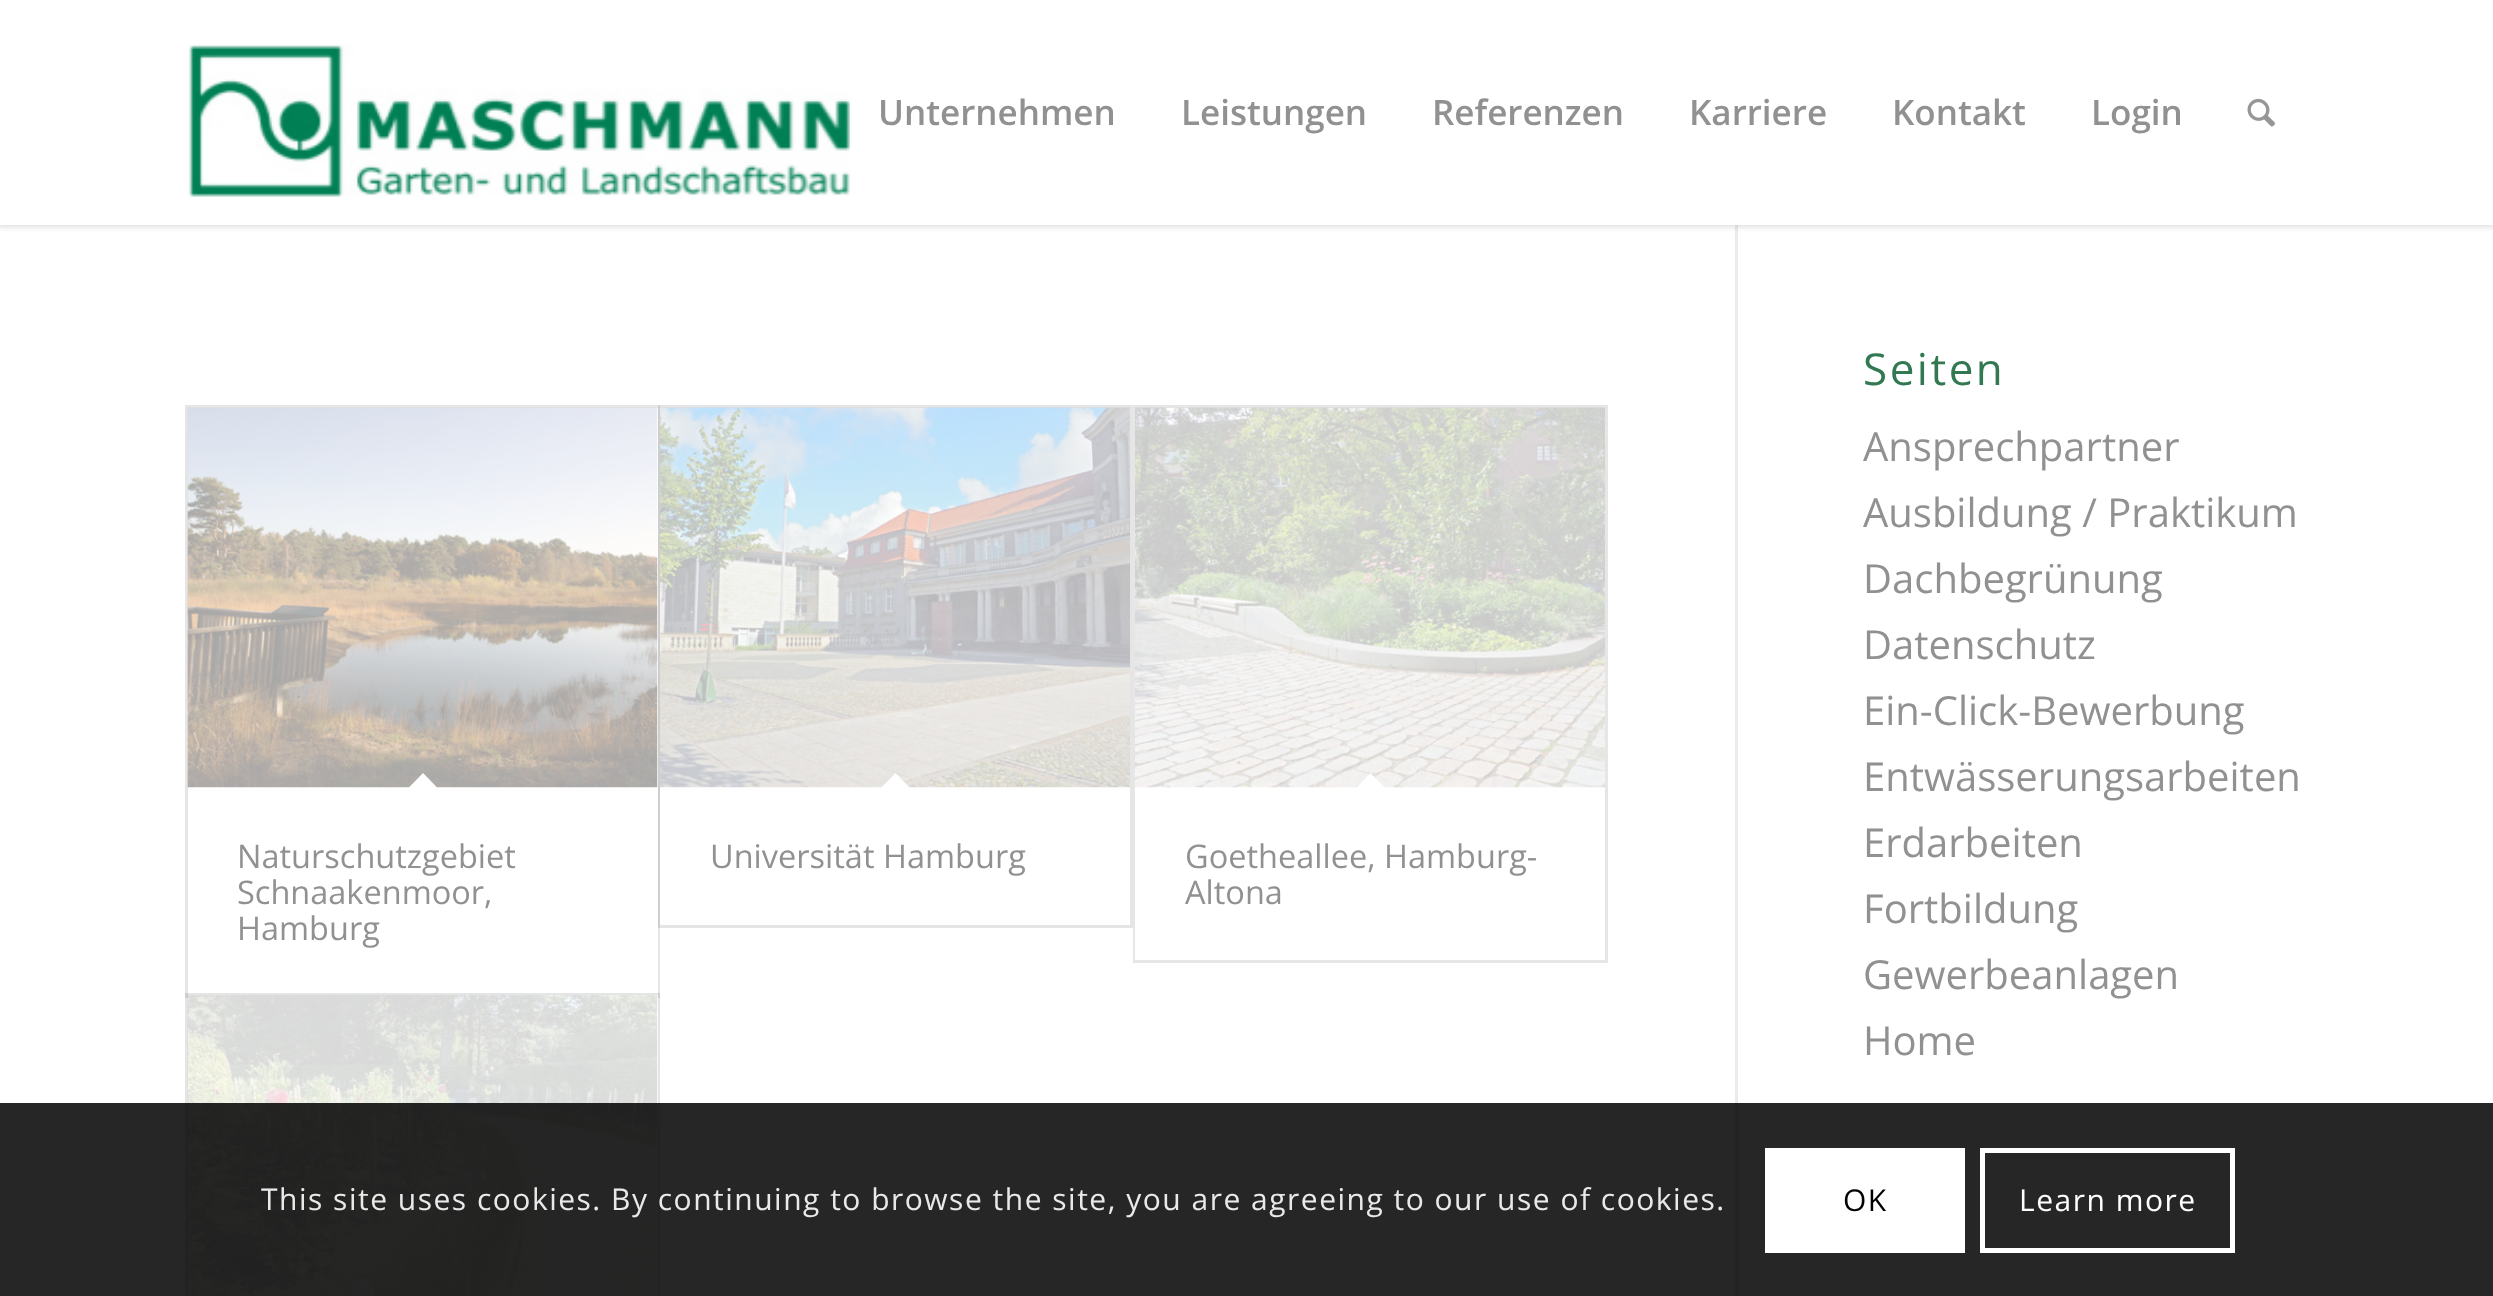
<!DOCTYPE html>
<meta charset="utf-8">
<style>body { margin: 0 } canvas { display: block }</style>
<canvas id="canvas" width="2493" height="1296"></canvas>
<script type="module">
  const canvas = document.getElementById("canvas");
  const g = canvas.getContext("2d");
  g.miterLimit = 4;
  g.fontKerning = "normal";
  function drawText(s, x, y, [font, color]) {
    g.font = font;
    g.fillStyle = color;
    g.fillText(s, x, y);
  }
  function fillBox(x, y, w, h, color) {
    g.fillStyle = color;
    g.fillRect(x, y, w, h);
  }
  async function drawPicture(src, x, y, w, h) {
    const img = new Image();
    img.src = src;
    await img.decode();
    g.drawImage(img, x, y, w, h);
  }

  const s1 = ["600 35px Open Sans", "#919191"];
  const s2 = ["32.5px Open Sans", "#919191"];
  const s3 = ["44px Open Sans", "#327952"];
  const s4 = ["40px Open Sans", "#919191"];
  const s5 = ["30px Open Sans", "#E9E9E9"];
  const s6 = ["30px Open Sans", "#000000"];
  const s7 = ["30px Open Sans", "#FFFFFF"];

  fillBox(0, 0, 2493, 1296, "#FFFFFF");
  fillBox(1735, 220, 3, 1076, "#EBEBEB");
  g.fillStyle = "rgba(0, 0, 0, 0.1)";
  g.filter = "blur(2.5px)";
  g.beginPath();
  g.rect(-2, -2, 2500, 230);
  g.fill();
  g.filter = "none";
  fillBox(0, 0, 2493, 225, "#FFFFFF");
  await drawPicture("pic1.png", 189, 44, 661, 153);
  drawText("Unternehmen", 878, 125, s1);
  drawText("Leistungen", 1181, 125, s1);
  drawText("Referenzen", 1432, 125, s1);
  drawText("Karriere", 1689, 125, s1);
  drawText("Kontakt", 1892, 125, s1);
  drawText("Login", 2091, 125, s1);
  await drawPicture("pic2.png", 2247, 98, 29, 29);
  g.strokeStyle = "#E6E6E6";
  g.lineWidth = 3;
  g.strokeRect(186.5, 406.5, 472, 590);
  fillBox(657, 408, 1, 587, "#FFFFFF");
  await drawPicture("pic3.png", 187, 407, 471, 381);
  g.beginPath();
  g.moveTo(423, 773);
  g.lineTo(440.5, 791);
  g.lineTo(423, 808.5);
  g.lineTo(405.5, 791);
  g.closePath();
  g.fill();
  drawText("Naturschutzgebiet", 237, 868, s2);
  drawText("Schnaakenmoor,", 237, 904, s2);
  drawText("Hamburg", 237, 940, s2);
  g.strokeStyle = "rgba(0, 0, 0, 0.1)";
  g.strokeRect(659.5, 406.5, 472, 520);
  fillBox(660, 408, 1, 517, "#FFFFFF");
  await drawPicture("pic4.png", 660, 407, 470, 381);
  g.beginPath();
  g.moveTo(895.5, 773);
  g.lineTo(913, 791);
  g.lineTo(895.5, 808.5);
  g.lineTo(878, 791);
  g.closePath();
  g.fill();
  drawText("Universität Hamburg", 710, 868, s2);
  g.strokeStyle = "#E6E6E6";
  g.strokeRect(1134.5, 406.5, 472, 555);
  fillBox(1135, 408, 1, 552, "#FFFFFF");
  await drawPicture("pic5.png", 1135, 407, 470, 381);
  g.beginPath();
  g.moveTo(1370.5, 773);
  g.lineTo(1388, 791);
  g.lineTo(1370.5, 808.5);
  g.lineTo(1353, 791);
  g.closePath();
  g.fill();
  drawText("Goetheallee, Hamburg-", 1185, 868, s2);
  drawText("Altona", 1185, 904, s2);
  g.strokeStyle = "rgba(0, 0, 0, 0.1)";
  g.strokeRect(186.5, 994.5, 472, 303);
  fillBox(188, 995, 470, 301, "#FFFFFF");
  await drawPicture("pic6.png", 187, 995, 471, 301);
  g.letterSpacing = "2.5px";
  drawText("Seiten", 1863, 385, s3);
  g.letterSpacing = "0px";
  drawText("Ansprechpartner", 1863, 461, s4);
  drawText("Ausbildung / Praktikum", 1863, 527, s4);
  drawText("Dachbegrünung", 1863, 593, s4);
  drawText("Datenschutz", 1863, 659, s4);
  drawText("Ein-Click-Bewerbung", 1863, 725, s4);
  drawText("Entwässerungsarbeiten", 1863, 791, s4);
  drawText("Erdarbeiten", 1863, 857, s4);
  drawText("Fortbildung", 1863, 923, s4);
  drawText("Gewerbeanlagen", 1863, 989, s4);
  drawText("Home", 1863, 1055, s4);
  fillBox(0, 1103, 2493, 193, "rgba(0, 0, 0, 0.85)");
  g.letterSpacing = "1.5px";
  drawText("This site uses cookies. By continuing to browse the site, you are agreeing to our use of cookies.", 261, 1210, s5);
  fillBox(1765, 1148, 200, 105, "#FFFFFF");
  drawText("OK", 1843, 1211, s6);
  g.strokeStyle = "#FFFFFF";
  g.lineWidth = 5;
  g.strokeRect(1982.5, 1150.5, 250, 100);
  drawText("Learn more", 2019, 1211, s7);
</script>
